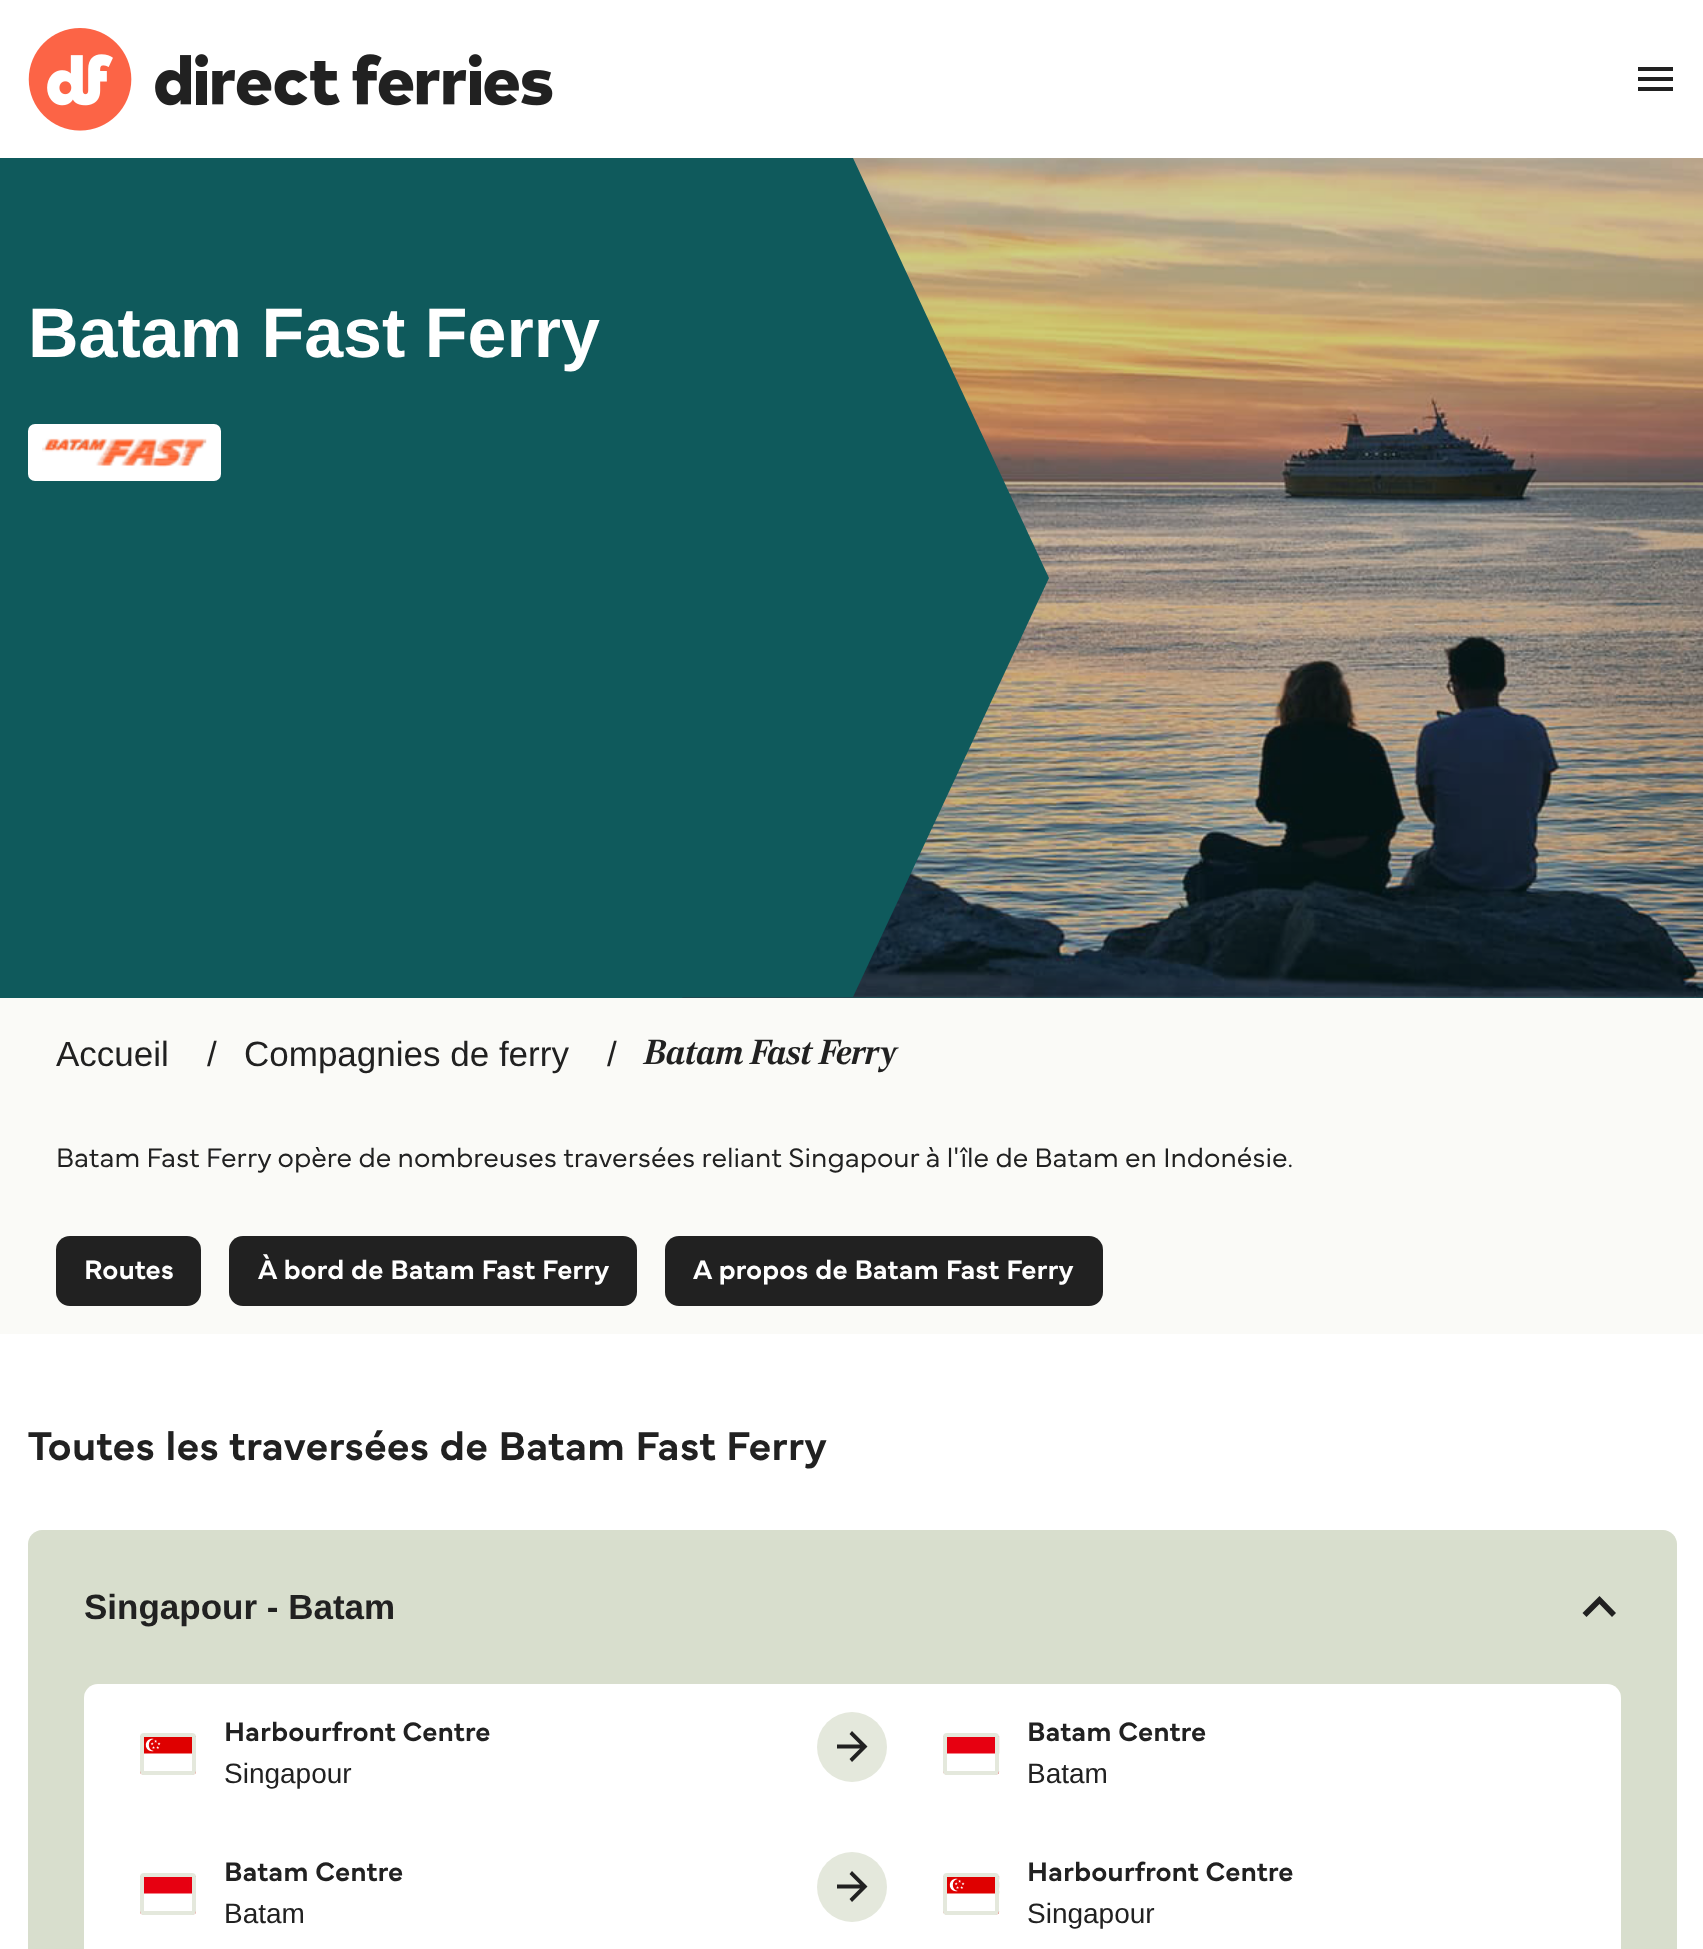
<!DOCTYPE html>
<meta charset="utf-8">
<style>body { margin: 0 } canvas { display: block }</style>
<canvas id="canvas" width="1703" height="1949"></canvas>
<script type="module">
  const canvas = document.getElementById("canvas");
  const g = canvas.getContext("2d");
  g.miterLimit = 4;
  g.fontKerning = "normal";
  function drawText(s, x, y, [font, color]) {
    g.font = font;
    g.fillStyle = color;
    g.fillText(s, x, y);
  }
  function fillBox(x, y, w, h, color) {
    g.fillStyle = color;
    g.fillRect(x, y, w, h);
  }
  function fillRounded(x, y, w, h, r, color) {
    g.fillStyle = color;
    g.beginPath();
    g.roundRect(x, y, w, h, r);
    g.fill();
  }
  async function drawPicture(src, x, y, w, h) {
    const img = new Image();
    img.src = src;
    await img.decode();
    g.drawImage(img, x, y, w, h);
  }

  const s1 = ["bold 70px Liberation Sans", "#FFFFFF"];
  const s2 = ["35px Liberation Sans", "#212121"];
  const s3 = ["italic bold 35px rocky", "#212121"];
  const s4 = ["300 28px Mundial", "#212121"];
  const s5 = ["600 28px Mundial", "#FFFFFF"];
  const s6 = ["600 42px Mundial", "#212121"];
  const s7 = ["bold 35px Liberation Sans", "#212121"];
  const s8 = ["600 28px Mundial", "#212121"];
  const s9 = ["28px Liberation Sans", "#212121"];

  fillBox(0, 0, 1703, 1949, "#FFFFFF");
  await drawPicture("pic1.png", 28, 28, 525, 103);
  fillBox(1638, 67, 35, 4, "#212121");
  fillBox(1638, 77, 35, 4, "#212121");
  fillBox(1638, 87, 35, 4, "#212121");
  fillBox(0, 997, 1703, 1, "#0F5A5C");
  await drawPicture("pic2.png", 682, 158, 1021, 840);
  g.beginPath();
  g.moveTo(-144, 158);
  g.lineTo(853, 158);
  g.lineTo(1049, 578);
  g.lineTo(853, 997);
  g.lineTo(-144, 997);
  g.closePath();
  g.fill();
  drawText("Batam Fast Ferry", 28, 357, s1);
  fillRounded(28, 424, 193, 57, 7, "#FFFFFF");
  await drawPicture("pic3.png", 42, 438, 165, 29);
  fillBox(0, 998, 1703, 336, "#FAFAF7");
  drawText("Accueil", 56, 1066, s2);
  drawText("/", 207, 1066, s2);
  drawText("Compagnies de ferry", 244, 1066, s2);
  drawText("/", 607, 1066, s2);
  drawText("Batam Fast Ferry", 645, 1064, s3);
  drawText("Batam Fast Ferry opère de nombreuses traversées reliant Singapour à l'île de Batam en Indonésie.", 56, 1167, s4);
  fillRounded(56, 1236, 145, 70, 14, "#212121");
  drawText("Routes", 84, 1279, s5);
  fillRounded(229, 1236, 408, 70, 14, "#212121");
  drawText("À bord de Batam Fast Ferry", 258, 1279, s5);
  fillRounded(665, 1236, 438, 70, 14, "#212121");
  drawText("A propos de Batam Fast Ferry", 693, 1279, s5);
  drawText("Toutes les traversées de Batam Fast Ferry", 28, 1460, s6);
  g.fillStyle = "#D8DECD";
  g.beginPath();
  g.moveTo(42, 1530);
  g.lineTo(1663, 1530);
  g.bezierCurveTo(1670.5, 1530, 1677, 1536.5, 1677, 1544);
  g.lineTo(1677, 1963);
  g.lineTo(28, 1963);
  g.lineTo(28, 1544);
  g.bezierCurveTo(28, 1536.5, 34.5, 1530, 42, 1530);
  g.closePath();
  g.fill();
  drawText("Singapour - Batam", 84, 1619, s7);
  g.beginPath();
  g.moveTo(1582.5, 1613);
  g.lineTo(1586.5, 1617);
  g.lineTo(1599.5, 1604);
  g.lineTo(1612, 1617);
  g.lineTo(1616, 1613);
  g.lineTo(1599.5, 1596);
  g.closePath();
  g.fill();
  fillRounded(84, 1684, 1537, 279, 14, "#FFFFFF");
  await drawPicture("pic4.png", 140, 1736, 56, 39);
  g.beginPath();
  g.roundRect(142, 1735, 52, 38, 2);
  g.strokeStyle = "#E4E8DC";
  g.lineWidth = 4;
  g.stroke();
  drawText("Harbourfront Centre", 224, 1741, s8);
  drawText("Singapour", 224, 1783, s9);
  g.fillStyle = "#E4E8DC";
  g.beginPath();
  g.arc(852, 1747, 35, 0, Math.PI * 2);
  g.fill();
  g.fillStyle = "#212121";
  g.beginPath();
  g.moveTo(837, 1744.5);
  g.lineTo(860, 1744.5);
  g.lineTo(849.5, 1734);
  g.lineTo(852, 1731);
  g.lineTo(867.5, 1746.5);
  g.lineTo(852, 1762);
  g.lineTo(849.5, 1759);
  g.lineTo(860, 1748.5);
  g.lineTo(837, 1748.5);
  g.closePath();
  g.fill();
  await drawPicture("pic5.png", 943, 1736, 57, 39);
  g.beginPath();
  g.roundRect(945, 1735, 52, 38, 2);
  g.stroke();
  drawText("Batam Centre", 1027, 1741, s8);
  drawText("Batam", 1027, 1783, s9);
  await drawPicture("pic6.png", 140, 1876, 56, 39);
  g.beginPath();
  g.roundRect(142, 1875, 52, 38, 2);
  g.stroke();
  drawText("Batam Centre", 224, 1881, s8);
  drawText("Batam", 224, 1923, s9);
  g.fillStyle = "#E4E8DC";
  g.beginPath();
  g.arc(852, 1887, 35, 0, Math.PI * 2);
  g.fill();
  g.fillStyle = "#212121";
  g.beginPath();
  g.moveTo(837, 1884.5);
  g.lineTo(860, 1884.5);
  g.lineTo(849.5, 1874);
  g.lineTo(852, 1871);
  g.lineTo(867.5, 1886.5);
  g.lineTo(852, 1902);
  g.lineTo(849.5, 1899);
  g.lineTo(860, 1888.5);
  g.lineTo(837, 1888.5);
  g.closePath();
  g.fill();
  await drawPicture("pic7.png", 943, 1876, 57, 39);
  g.beginPath();
  g.roundRect(945, 1875, 52, 38, 2);
  g.stroke();
  drawText("Harbourfront Centre", 1027, 1881, s8);
  drawText("Singapour", 1027, 1923, s9);
</script>
